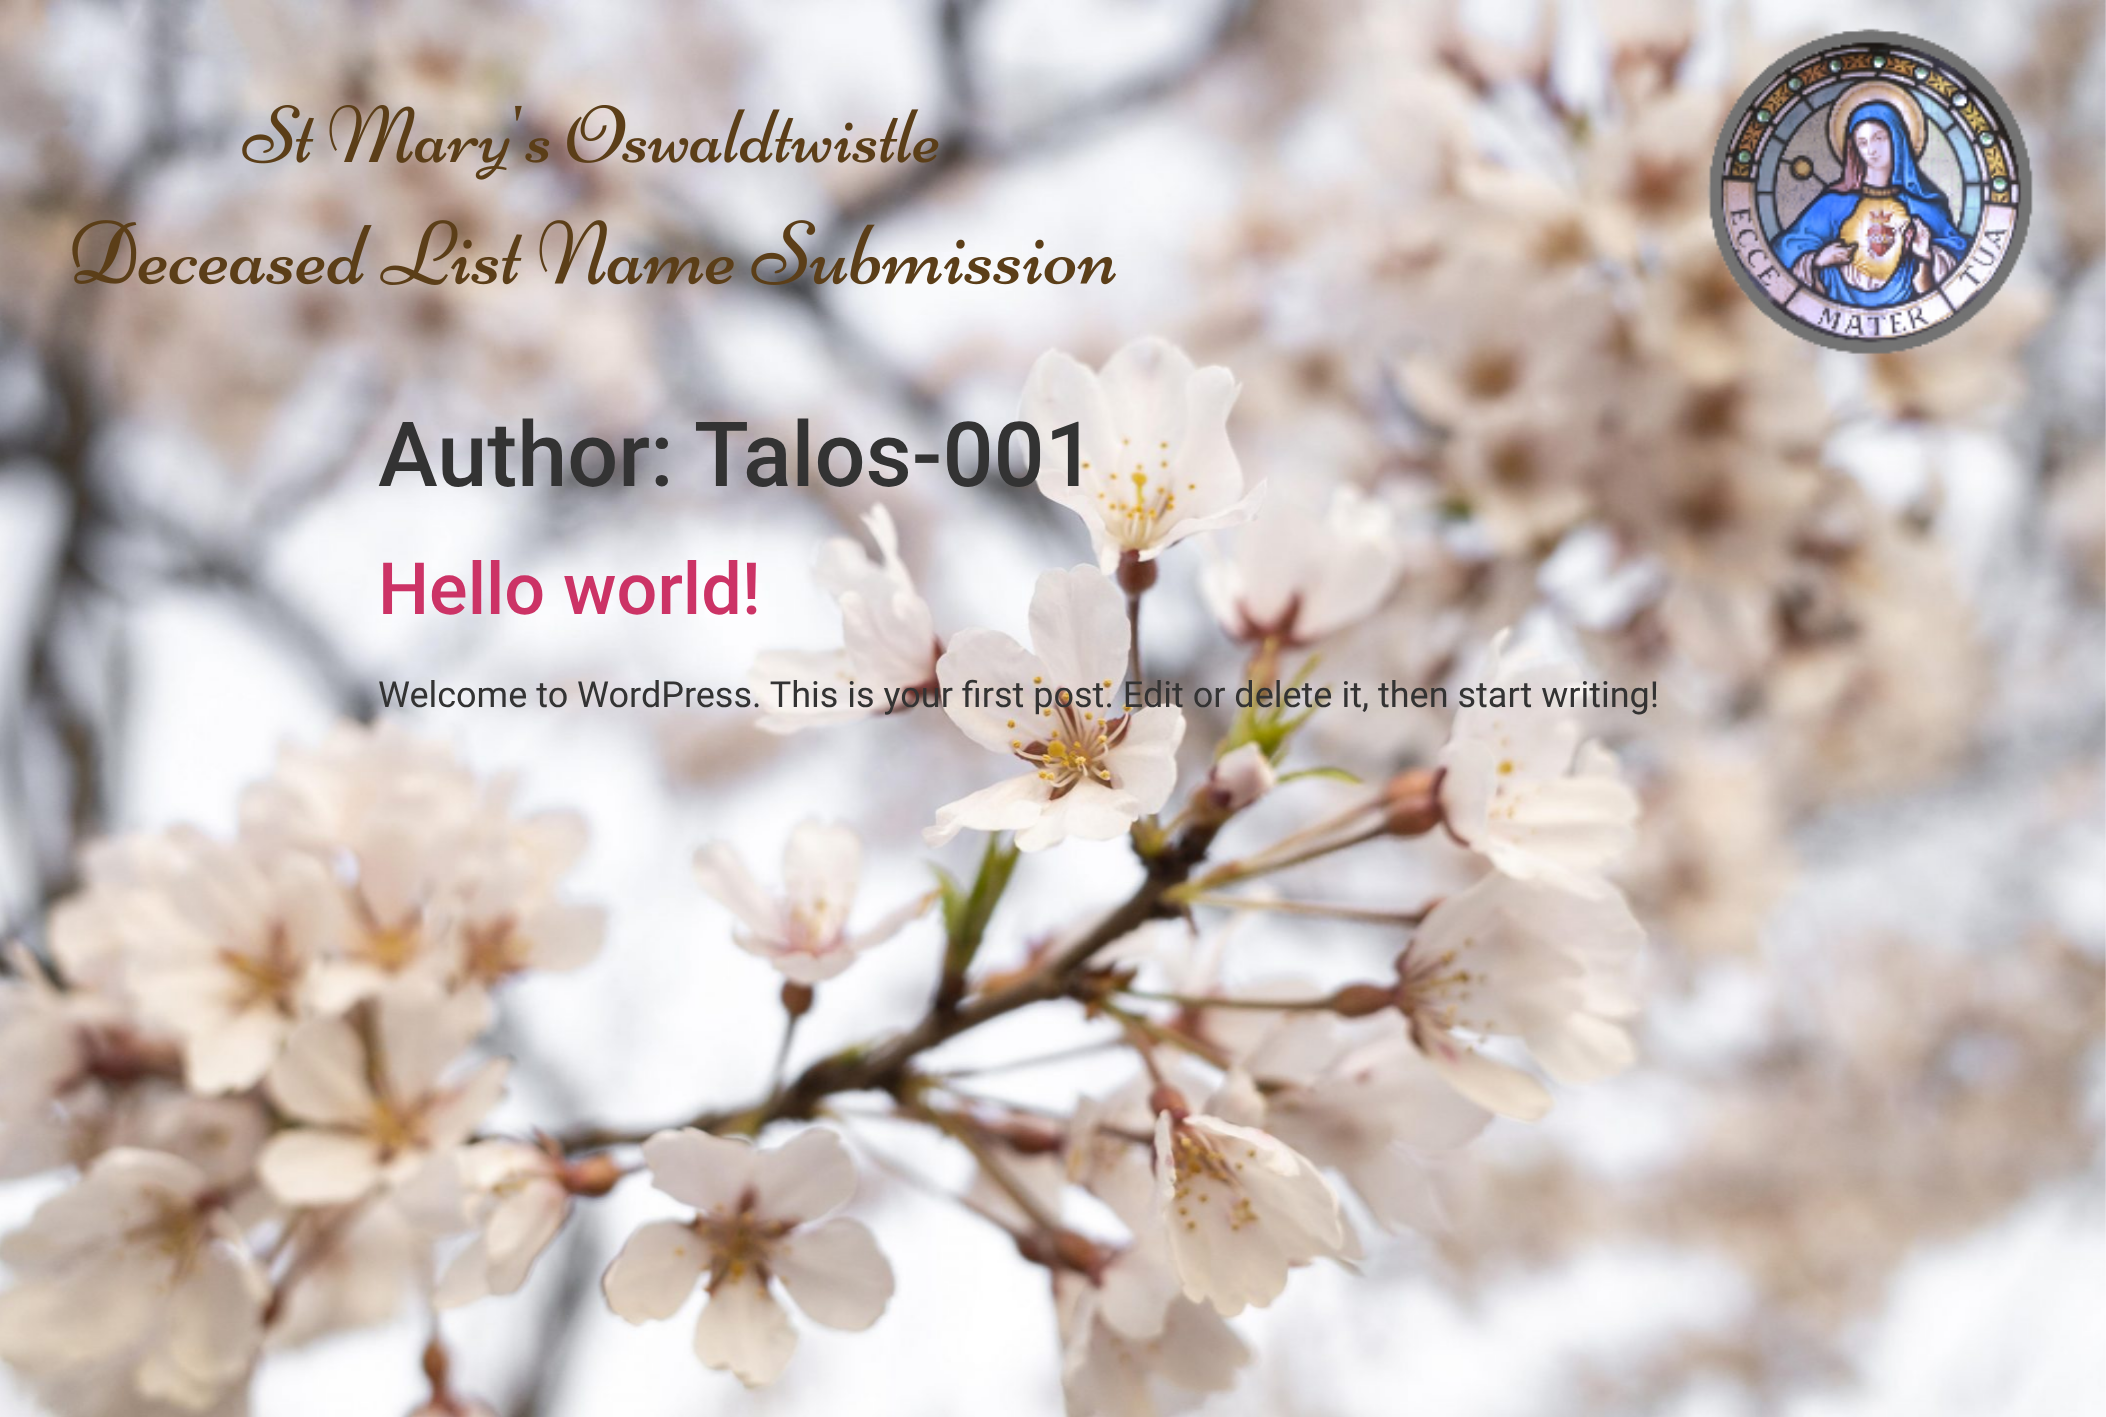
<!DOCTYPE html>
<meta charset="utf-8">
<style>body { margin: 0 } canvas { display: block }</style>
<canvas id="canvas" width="2106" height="1417"></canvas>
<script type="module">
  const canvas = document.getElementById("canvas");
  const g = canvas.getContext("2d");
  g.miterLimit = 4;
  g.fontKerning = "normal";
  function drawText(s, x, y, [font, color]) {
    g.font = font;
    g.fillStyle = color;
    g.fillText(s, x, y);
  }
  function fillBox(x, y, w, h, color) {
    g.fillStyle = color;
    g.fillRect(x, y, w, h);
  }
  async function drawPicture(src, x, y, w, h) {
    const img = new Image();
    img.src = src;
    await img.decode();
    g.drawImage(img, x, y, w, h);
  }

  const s1 = ["500 90px Roboto", "#333333"];
  const s2 = ["500 72px Roboto", "#CC3366"];
  const s3 = ["36px Roboto", "#333333"];

  fillBox(0, 0, 2106, 1417, "#FFFFFF");
  await drawPicture("pic1.png", 0, 0, 2106, 1417);
  await drawPicture("pic2.png", 242, 105, 697, 75);
  await drawPicture("pic3.png", 72, 220, 1044, 65);
  await drawPicture("pic4.png", 1707, 28, 326, 326);
  drawText("Author:", 378, 486, s1);
  drawText("Talos-001", 694, 486, s1);
  drawText("Hello world!", 378, 614, s2);
  drawText("Welcome to WordPress. This is your first post. Edit or delete it, then start writing!", 378, 707, s3);
</script>
